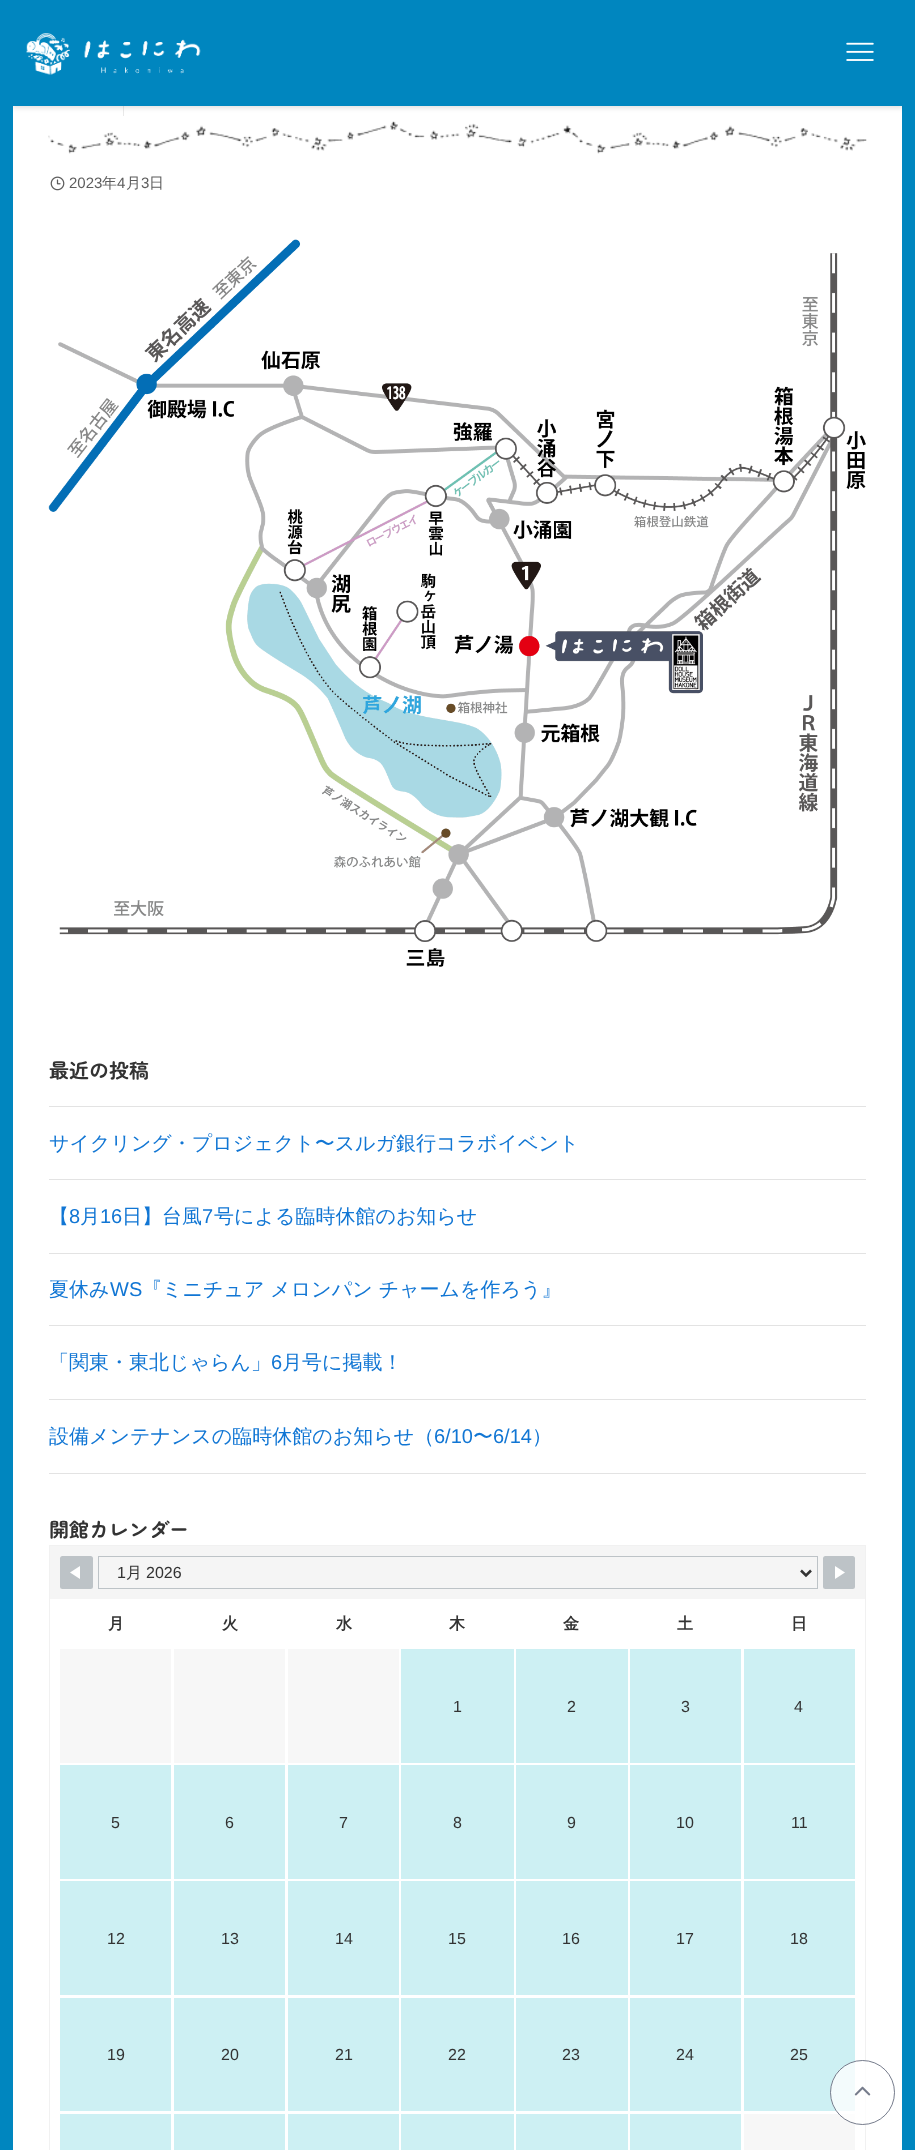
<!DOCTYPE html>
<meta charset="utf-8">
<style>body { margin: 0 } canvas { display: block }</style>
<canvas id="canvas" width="915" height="2150"></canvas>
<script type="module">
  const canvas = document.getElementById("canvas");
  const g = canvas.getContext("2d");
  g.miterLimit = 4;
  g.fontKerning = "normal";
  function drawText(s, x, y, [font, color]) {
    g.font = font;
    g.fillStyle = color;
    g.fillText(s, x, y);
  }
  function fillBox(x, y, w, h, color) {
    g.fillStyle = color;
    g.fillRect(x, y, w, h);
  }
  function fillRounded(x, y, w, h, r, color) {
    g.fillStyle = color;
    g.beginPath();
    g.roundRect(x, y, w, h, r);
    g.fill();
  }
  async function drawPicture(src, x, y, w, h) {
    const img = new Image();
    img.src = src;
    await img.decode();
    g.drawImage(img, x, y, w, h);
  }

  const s1 = ["15px Liberation Sans", "#5C5C5C"];
  const s2 = ["500 15px WenQuanYi Zen Hei", "#5C5C5C"];
  const s3 = ["bold 20px Zen Maru Gothic", "#333333"];
  const s4 = ["500 20px WenQuanYi Zen Hei", "#1176D4"];
  const s5 = ["20px Liberation Sans", "#1176D4"];
  const s6 = ["16px Liberation Sans", "#333333"];
  const s7 = ["500 16px WenQuanYi Zen Hei", "#333333"];
  const s8 = ["bold 16px WenQuanYi Zen Hei", "#333333"];

  fillBox(0, 0, 915, 2150, "#FFFFFF");
  g.strokeStyle = "#0086BF";
  g.lineWidth = 13;
  g.strokeRect(6.5, -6.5, 902, 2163);
  fillBox(123, 106, 1, 10, "#E9E9E9");
  g.save();
  g.beginPath();
  g.rect(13, 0, 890, 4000);
  g.clip();
  g.fillStyle = "rgba(0, 0, 0, 0.12)";
  g.filter = "blur(2.5px)";
  g.beginPath();
  g.rect(13, 1, 890, 107);
  g.fill();
  g.filter = "none";
  g.restore();
  fillBox(13, 0, 890, 106, "#0086BF");
  await drawPicture("pic1.png", 26, 33, 175, 42);
  await drawPicture("pic2.png", 846, 42, 28, 19);
  await drawPicture("pic3.png", 48, 121, 819, 33);
  await drawPicture("pic4.png", 50, 176, 15, 15);
  drawText("2023", 69, 188, s1);
  drawText("年", 102, 188, s2);
  drawText("4", 117, 188, s1);
  drawText("月", 126, 188, s2);
  drawText("3", 141, 188, s1);
  drawText("日", 149, 188, s2);
  await drawPicture("pic5.png", 48, 239, 818, 728);
  drawText("最近の投稿", 49, 1078, s3);
  fillBox(49, 1106, 817, 1, "#E3E3E3");
  fillBox(49, 1179, 817, 1, "#E3E3E3");
  drawText("サイクリング・プロジェクト〜スルガ銀行コラボイベント", 49, 1150, s4);
  fillBox(49, 1253, 817, 1, "#E3E3E3");
  drawText("【", 49, 1223, s4);
  drawText("8", 69, 1223, s5);
  drawText("月", 80, 1223, s4);
  drawText("16", 100, 1223, s5);
  drawText("日】台風", 122, 1223, s4);
  drawText("7", 202, 1223, s5);
  drawText("号による臨時休館のお知らせ", 214, 1223, s4);
  fillBox(49, 1325, 817, 1, "#E3E3E3");
  drawText("夏休み", 49, 1296, s4);
  drawText("WS", 110, 1296, s5);
  drawText("『ミニチュア メロンパン チャームを作ろう』", 142, 1296, s4);
  fillBox(49, 1399, 817, 1, "#E3E3E3");
  drawText("「関東・東北じゃらん」", 49, 1369, s4);
  drawText("6", 271, 1369, s5);
  drawText("月号に掲載！", 282, 1369, s4);
  fillBox(49, 1473, 817, 1, "#E3E3E3");
  drawText("設備メンテナンスの臨時休館のお知らせ（", 49, 1443, s4);
  drawText("6/10", 434, 1443, s5);
  drawText("〜", 473, 1443, s4);
  drawText("6/14", 493, 1443, s5);
  drawText("）", 532, 1443, s4);
  drawText("開館カレンダー", 49, 1537, s3);
  g.strokeStyle = "#F1F1F1";
  g.lineWidth = 1;
  g.strokeRect(49.5, 1545.5, 816, 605);
  fillBox(50, 1546, 815, 53, "#F5F5F5");
  fillRounded(60, 1556, 33, 33, 2.5, "#BDC3C7");
  g.fillStyle = "#FFFFFF";
  g.beginPath();
  g.moveTo(80, 1566);
  g.lineTo(80, 1579);
  g.lineTo(70, 1572.5);
  g.closePath();
  g.fill();
  g.strokeStyle = "#BDC3C7";
  g.strokeRect(98.5, 1556.5, 719, 32);
  g.beginPath();
  g.moveTo(801, 1570.5);
  g.lineTo(806, 1575.5);
  g.lineTo(811, 1570.5);
  g.strokeStyle = "#333333";
  g.lineWidth = 2.5;
  g.stroke();
  drawText("1", 117, 1578, s6);
  drawText("月", 126, 1578, s7);
  drawText("2026", 146, 1578, s6);
  fillRounded(823, 1556, 32, 33, 2.5, "#BDC3C7");
  g.fillStyle = "#FFFFFF";
  g.beginPath();
  g.moveTo(835, 1579);
  g.lineTo(835, 1566);
  g.lineTo(845, 1572.5);
  g.closePath();
  g.fill();
  drawText("月", 108, 1629, s8);
  drawText("火", 222, 1629, s8);
  drawText("水", 336, 1629, s8);
  drawText("木", 449, 1629, s8);
  drawText("金", 563, 1629, s8);
  drawText("土", 677, 1629, s8);
  drawText("日", 791, 1629, s8);
  fillBox(60, 1649, 111, 114, "#F7F7F7");
  fillBox(174, 1649, 111, 114, "#F7F7F7");
  fillBox(288, 1649, 111, 114, "#F7F7F7");
  fillBox(401, 1649, 113, 114, "#CDF0F3");
  drawText("1", 453, 1712, s6);
  fillBox(516, 1649, 112, 114, "#CDF0F3");
  drawText("2", 567, 1712, s6);
  fillBox(630, 1649, 111, 114, "#CDF0F3");
  drawText("3", 681, 1712, s6);
  fillBox(744, 1649, 111, 114, "#CDF0F3");
  drawText("4", 794, 1712, s6);
  fillBox(60, 1765, 111, 114, "#CDF0F3");
  drawText("5", 111, 1828, s6);
  fillBox(174, 1765, 111, 114, "#CDF0F3");
  drawText("6", 225, 1828, s6);
  fillBox(288, 1765, 111, 114, "#CDF0F3");
  drawText("7", 339, 1828, s6);
  fillBox(401, 1765, 113, 114, "#CDF0F3");
  drawText("8", 453, 1828, s6);
  fillBox(516, 1765, 112, 114, "#CDF0F3");
  drawText("9", 567, 1828, s6);
  fillBox(630, 1765, 111, 114, "#CDF0F3");
  drawText("10", 676, 1828, s6);
  fillBox(744, 1765, 111, 114, "#CDF0F3");
  drawText("11", 791, 1828, s6);
  fillBox(60, 1881, 111, 114, "#CDF0F3");
  drawText("12", 107, 1944, s6);
  fillBox(174, 1881, 111, 114, "#CDF0F3");
  drawText("13", 221, 1944, s6);
  fillBox(288, 1881, 111, 114, "#CDF0F3");
  drawText("14", 335, 1944, s6);
  fillBox(401, 1881, 113, 114, "#CDF0F3");
  drawText("15", 448, 1944, s6);
  fillBox(516, 1881, 112, 114, "#CDF0F3");
  drawText("16", 562, 1944, s6);
  fillBox(630, 1881, 111, 114, "#CDF0F3");
  drawText("17", 676, 1944, s6);
  fillBox(744, 1881, 111, 114, "#CDF0F3");
  drawText("18", 790, 1944, s6);
  fillBox(60, 1998, 111, 113, "#CDF0F3");
  drawText("19", 107, 2060, s6);
  fillBox(174, 1998, 111, 113, "#CDF0F3");
  drawText("20", 221, 2060, s6);
  fillBox(288, 1998, 111, 113, "#CDF0F3");
  drawText("21", 335, 2060, s6);
  fillBox(401, 1998, 113, 113, "#CDF0F3");
  drawText("22", 448, 2060, s6);
  fillBox(516, 1998, 112, 113, "#CDF0F3");
  drawText("23", 562, 2060, s6);
  fillBox(630, 1998, 111, 113, "#CDF0F3");
  drawText("24", 676, 2060, s6);
  fillBox(744, 1998, 111, 113, "#CDF0F3");
  drawText("25", 790, 2060, s6);
  fillBox(60, 2114, 111, 36, "#CDF0F3");
  fillBox(174, 2114, 111, 36, "#CDF0F3");
  fillBox(288, 2114, 111, 36, "#CDF0F3");
  fillBox(401, 2114, 113, 36, "#CDF0F3");
  fillBox(516, 2114, 112, 36, "#CDF0F3");
  fillBox(630, 2114, 111, 36, "#CDF0F3");
  fillBox(744, 2114, 111, 36, "#F7F7F7");
  g.fillStyle = "rgba(255, 255, 255, 0.75)";
  g.beginPath();
  g.arc(862.5, 2092.5, 32.5, 0, Math.PI * 2);
  g.fill();
  g.beginPath();
  g.arc(862.5, 2092.5, 32, 0, Math.PI * 2);
  g.strokeStyle = "rgba(72, 80, 101, 0.75)";
  g.lineWidth = 1;
  g.stroke();
  await drawPicture("pic6.png", 854, 2086, 17, 10);
</script>
